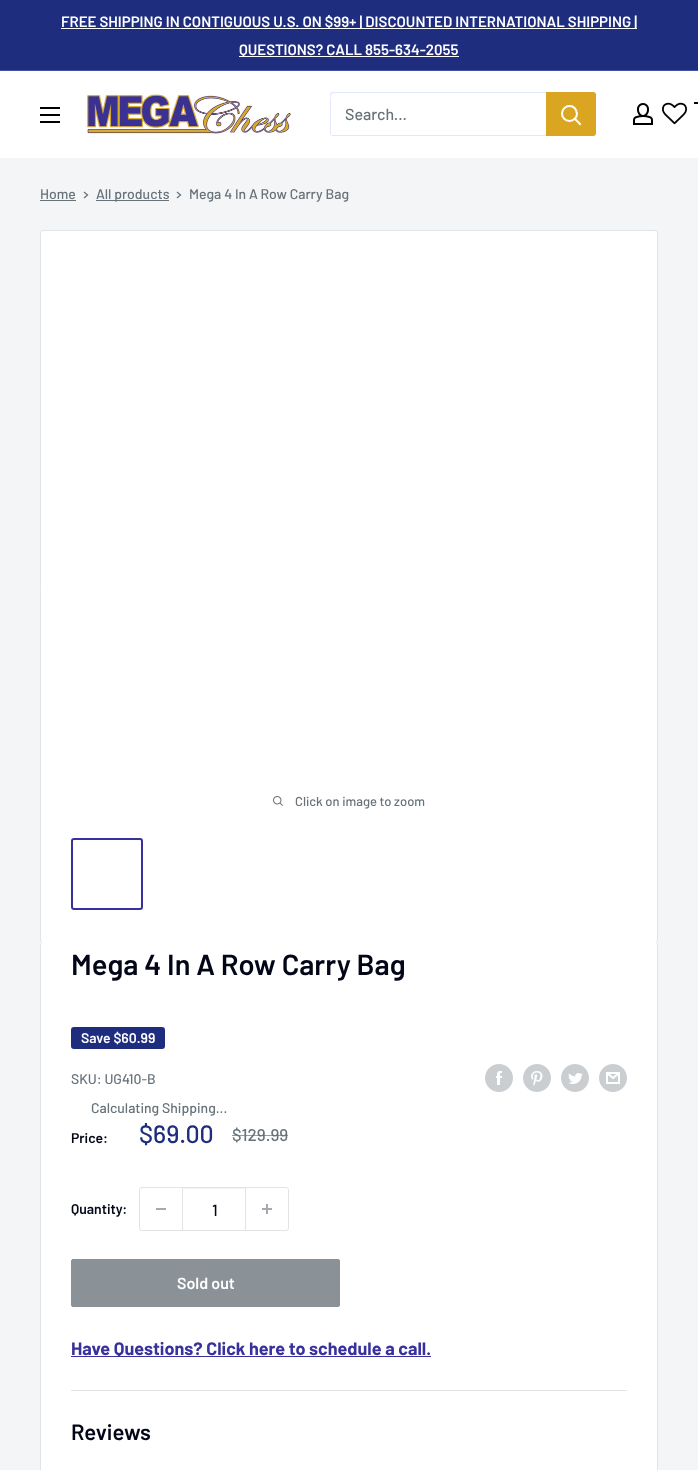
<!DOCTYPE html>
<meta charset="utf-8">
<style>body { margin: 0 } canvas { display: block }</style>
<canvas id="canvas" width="698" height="1470"></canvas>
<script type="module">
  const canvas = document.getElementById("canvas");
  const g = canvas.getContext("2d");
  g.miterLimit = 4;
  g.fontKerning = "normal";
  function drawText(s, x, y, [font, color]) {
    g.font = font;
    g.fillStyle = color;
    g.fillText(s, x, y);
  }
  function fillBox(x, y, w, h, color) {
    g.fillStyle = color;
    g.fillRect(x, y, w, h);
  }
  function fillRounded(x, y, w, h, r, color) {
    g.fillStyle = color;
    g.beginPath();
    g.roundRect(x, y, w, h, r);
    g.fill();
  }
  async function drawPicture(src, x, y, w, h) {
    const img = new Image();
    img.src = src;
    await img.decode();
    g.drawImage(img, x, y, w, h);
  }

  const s1 = ["600 15px Barlow", "#FFFFFF"];
  const s2 = ["500 16px Barlow", "#677279"];
  const s3 = ["500 14px Barlow", "#677279"];
  const s4 = ["500 13px Barlow", "#677279"];
  const s5 = ["600 29px Barlow", "#020616"];
  const s6 = ["600 14px Barlow", "#FFFFFF"];
  const s7 = ["600 14px Barlow", "#020616"];
  const s8 = ["500 25px Barlow", "#1E2D7D"];
  const s9 = ["500 17px Barlow", "#677279"];
  const s10 = ["500 16px Barlow", "#020616"];
  const s11 = ["600 16px Barlow", "#FFFFFF"];
  const s12 = ["bold 18px Barlow", "#38309C"];
  const s13 = ["600 22px Barlow", "#020616"];

  fillBox(0, 0, 698, 1470, "#F3F5F6");
  fillBox(0, 0, 698, 70, "#1E2D7D");
  fillBox(0, 70, 698, 1, "#46549F");
  fillBox(61, 28, 576, 1, "#FFFFFF");
  drawText("FREE SHIPPING IN CONTIGUOUS U.S. ON $99+ | DISCOUNTED INTERNATIONAL SHIPPING |", 61, 27, s1);
  fillBox(239, 56, 220, 1, "#FFFFFF");
  drawText("QUESTIONS? CALL 855-634-2055", 239, 55, s1);
  fillBox(0, 71, 698, 87, "#FFFFFF");
  await drawPicture("pic1.png", 40, 107, 20, 16);
  await drawPicture("pic2.png", 84, 91, 208, 44);
  g.fillStyle = "#E3E7FA";
  g.beginPath();
  g.moveTo(331, 135);
  g.bezierCurveTo(331, 136, 332, 136, 333, 136);
  g.lineTo(593, 136);
  g.bezierCurveTo(595, 136, 596, 135, 596, 133);
  g.lineTo(596, 95);
  g.bezierCurveTo(596, 94, 596, 93, 595, 93);
  g.lineTo(595, 126);
  g.bezierCurveTo(595, 128, 597, 135, 592, 135);
  g.closePath();
  g.fill();
  g.beginPath();
  g.moveTo(334, 93);
  g.lineTo(595, 93);
  g.bezierCurveTo(595, 92, 594, 92, 593, 92);
  g.lineTo(333, 92);
  g.bezierCurveTo(331, 92, 330, 93, 330, 95);
  g.lineTo(330, 133);
  g.bezierCurveTo(330, 134, 330, 135, 331, 135);
  g.lineTo(331, 102);
  g.bezierCurveTo(331, 100, 329, 93, 334, 93);
  g.closePath();
  g.fill();
  drawText("Search...", 345, 120, s2);
  g.fillStyle = "#DAA520";
  g.beginPath();
  g.roundRect(546, 92, 50, 44, [0, 3, 3, 0]);
  g.fill();
  g.beginPath();
  g.moveTo(580, 124);
  g.lineTo(575, 119);
  g.strokeStyle = "#FFFFFF";
  g.lineWidth = 2;
  g.lineCap = "square";
  g.stroke();
  g.beginPath();
  g.arc(569.5, 113.5, 7.5, 0, Math.PI * 2);
  g.stroke();
  await drawPicture("pic3.png", 633, 103, 20, 22);
  await drawPicture("pic4.png", 662, 102, 25, 23);
  g.beginPath();
  g.moveTo(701.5, 108);
  g.lineTo(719.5, 108);
  g.lineTo(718, 118);
  g.lineTo(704, 118);
  g.lineTo(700, 103);
  g.lineTo(694, 103);
  g.strokeStyle = "#000000";
  g.lineCap = "butt";
  g.stroke();
  drawText("Home", 40, 199, s3);
  fillBox(40, 200, 36, 1, "#677279");
  g.beginPath();
  g.moveTo(84.5, 192.5);
  g.lineTo(87.5, 195);
  g.lineTo(84.5, 197.5);
  g.strokeStyle = "#677279";
  g.lineWidth = 1.3;
  g.lineCap = "square";
  g.stroke();
  fillBox(96, 200, 73, 1, "#677279");
  drawText("All products", 96, 199, s3);
  g.beginPath();
  g.moveTo(177.5, 192.5);
  g.lineTo(180.5, 195);
  g.lineTo(177.5, 197.5);
  g.stroke();
  drawText("Mega 4 In A Row Carry Bag", 189, 199, s3);
  g.fillStyle = "#FFFFFF";
  g.beginPath();
  g.roundRect(40.5, 230.5, 617, 712, 2.5);
  g.fill();
  g.strokeStyle = "#E1E3E4";
  g.lineWidth = 1;
  g.stroke();
  await drawPicture("pic5.png", 273, 796, 10, 10);
  drawText("Click on image to zoom", 295, 806, s4);
  g.beginPath();
  g.roundRect(72, 839, 70, 70, 2);
  g.strokeStyle = "#38309C";
  g.lineWidth = 2;
  g.stroke();
  g.fillStyle = "#FFFFFF";
  g.beginPath();
  g.moveTo(43, 942);
  g.bezierCurveTo(41, 942, 40, 944, 40, 946);
  g.bezierCurveTo(40, 944, 41, 943, 43, 943);
  g.lineTo(655, 943);
  g.bezierCurveTo(657, 943, 658, 944, 658, 946);
  g.bezierCurveTo(658, 944, 657, 942, 655, 942);
  g.closePath();
  g.fill();
  fillRounded(40, 943, 618, 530, 3, "#FFFFFF");
  g.fillStyle = "#E1E3E4";
  g.beginPath();
  g.moveTo(43, 943);
  g.lineTo(655, 943);
  g.bezierCurveTo(657, 943, 658, 944, 658, 946);
  g.lineTo(658, 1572);
  g.bezierCurveTo(658, 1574, 657, 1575, 655, 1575);
  g.lineTo(43, 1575);
  g.bezierCurveTo(41, 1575, 40, 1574, 40, 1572);
  g.lineTo(40, 946);
  g.bezierCurveTo(40, 944, 41, 943, 43, 943);
  g.closePath();
  g.moveTo(43, 943);
  g.lineTo(655, 943);
  g.bezierCurveTo(656, 943, 657, 944, 657, 946);
  g.lineTo(657, 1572);
  g.bezierCurveTo(657, 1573, 656, 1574, 655, 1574);
  g.lineTo(43, 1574);
  g.bezierCurveTo(42, 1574, 41, 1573, 41, 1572);
  g.lineTo(41, 946);
  g.bezierCurveTo(41, 944, 42, 943, 43, 943);
  g.closePath();
  g.fill("evenodd");
  drawText("Mega 4 In A Row Carry Bag", 71, 975, s5);
  fillRounded(71, 1027, 94, 22, 3, "#1E2D7D");
  drawText("Save $60.99", 81, 1043, s6);
  drawText("SKU: UG410-B", 71, 1084, s3);
  await drawPicture("pic6.png", 485, 1064, 28, 28);
  await drawPicture("pic7.png", 523, 1064, 28, 28);
  await drawPicture("pic8.png", 561, 1064, 28, 28);
  await drawPicture("pic9.png", 599, 1064, 28, 28);
  drawText("Calculating Shipping...", 91, 1113, s3);
  drawText("Price:", 71, 1143, s7);
  drawText("$69.00", 139, 1143, s8);
  drawText("$129.99", 232, 1141, s9);
  fillBox(232, 1135, 56, 1, "rgba(103, 114, 121, 0.7)");
  drawText("Quantity:", 71, 1214, s7);
  g.beginPath();
  g.roundRect(139.5, 1187.5, 149, 43, 2.5);
  g.strokeStyle = "#E1E3E4";
  g.lineWidth = 1;
  g.stroke();
  fillBox(156, 1208, 10, 2, "#A4AAAF");
  fillBox(183, 1188, 62, 1, "#F3F4F4");
  fillBox(245, 1188, 1, 42, "#E1E3E4");
  fillBox(182, 1188, 1, 42, "#E1E3E4");
  drawText("1", 212, 1216, s10);
  await drawPicture("pic10.png", 262, 1204, 10, 10);
  g.fillStyle = "#8A9297";
  g.beginPath();
  g.roundRect(71.5, 1259.5, 268, 47, 1.5);
  g.fill();
  g.strokeStyle = "#8A9297";
  g.stroke();
  drawText("Sold out", 177, 1289, s11);
  fillBox(71, 1356, 360, 1, "#38309C");
  drawText("Have Questions? Click here to schedule a call.", 71, 1355, s12);
  fillBox(71, 1390, 556, 1, "#E1E3E4");
  drawText("Reviews", 71, 1440, s13);
</script>
